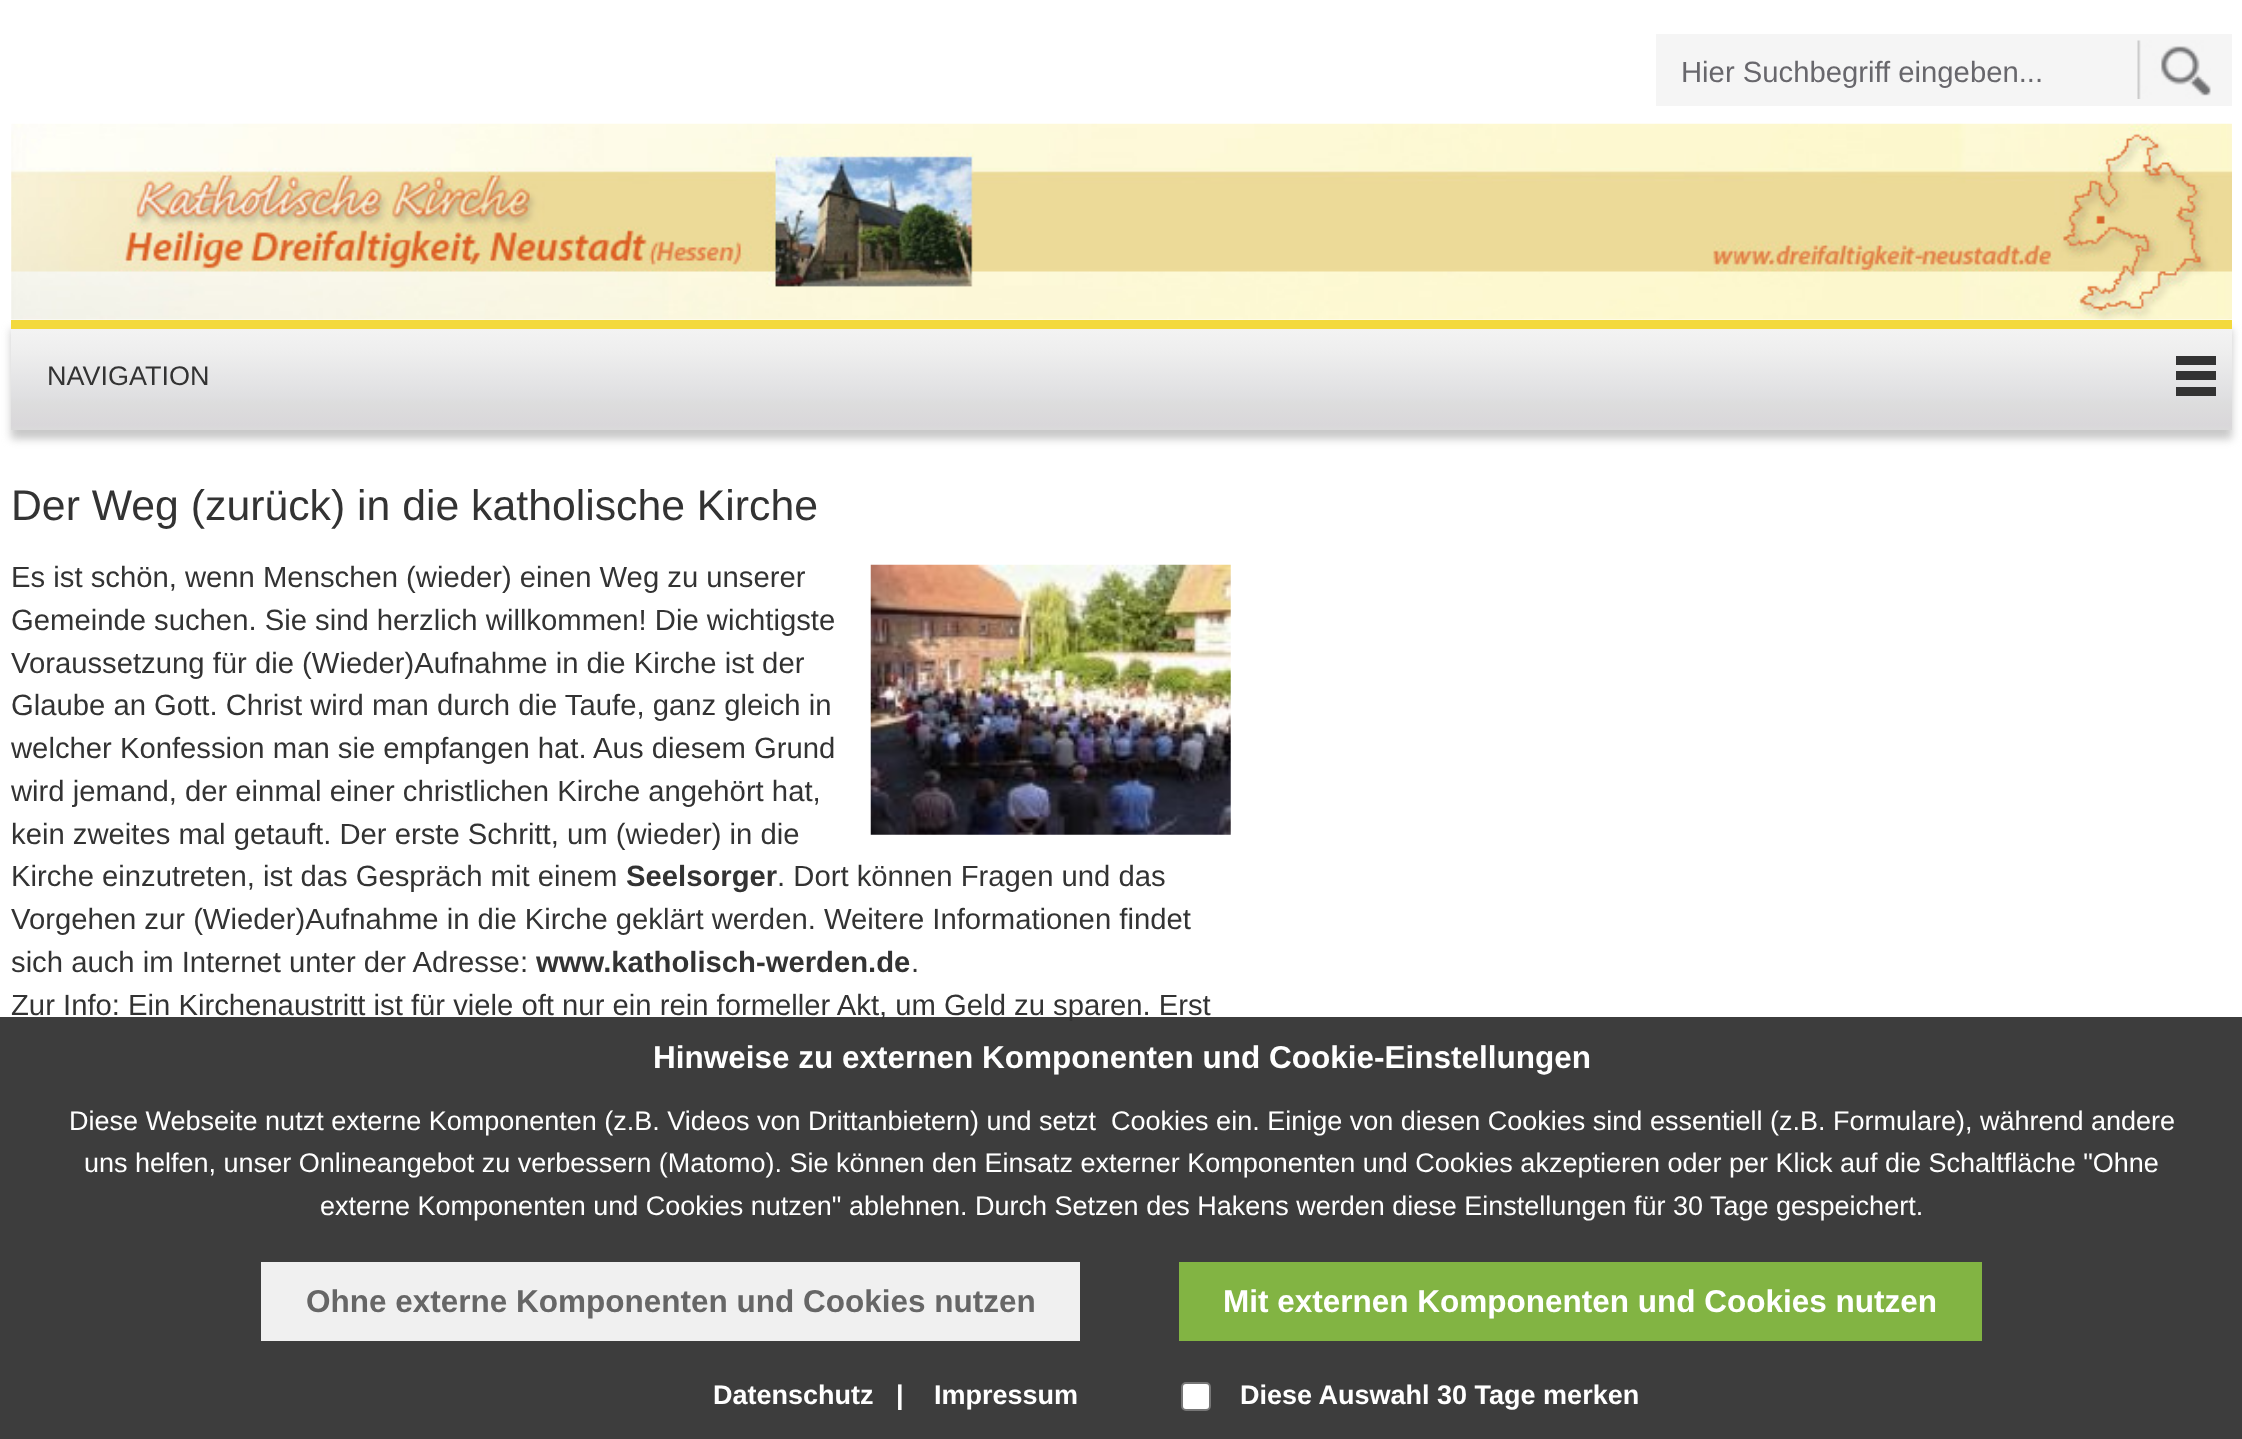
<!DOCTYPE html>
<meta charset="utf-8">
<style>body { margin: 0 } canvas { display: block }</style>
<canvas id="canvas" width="2242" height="1439"></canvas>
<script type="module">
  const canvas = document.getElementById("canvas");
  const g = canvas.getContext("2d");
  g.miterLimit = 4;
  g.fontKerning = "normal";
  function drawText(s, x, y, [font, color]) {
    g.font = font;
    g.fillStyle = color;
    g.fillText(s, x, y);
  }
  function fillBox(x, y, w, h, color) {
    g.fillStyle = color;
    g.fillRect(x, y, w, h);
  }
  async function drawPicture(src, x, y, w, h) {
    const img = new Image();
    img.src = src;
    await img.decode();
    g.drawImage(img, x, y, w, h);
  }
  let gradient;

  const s1 = ["29.25px Liberation Sans", "#68676C"];
  const s2 = ["27px Liberation Sans", "#333333"];
  const s3 = ["42.75px Liberation Sans", "#333333"];
  const s4 = ["29.25px Liberation Sans", "#333333"];
  const s5 = ["bold 29.25px Liberation Sans", "#333333"];
  const s6 = ["bold 31.5px Liberation Sans", "#FFFFFF"];
  const s7 = ["27px Liberation Sans", "#FFFFFF"];
  const s8 = ["bold 31.5px Liberation Sans", "#666666"];
  const s9 = ["bold 27px Liberation Sans", "#FFFFFF"];

  fillBox(0, 0, 2242, 1439, "#FFFFFF");
  fillBox(1656, 34, 576, 72, "#F5F5F5");
  drawText("Hier Suchbegriff eingeben...", 1681, 82, s1);
  await drawPicture("pic1.png", 2137, 40, 74, 59);
  g.fillStyle = "#C8C8C8";
  g.filter = "blur(4.5px)";
  g.beginPath();
  g.rect(11, 329, 2221, 110);
  g.fill();
  g.filter = "none";
  await drawPicture("pic2.png", 11, 123, 2221, 197);
  gradient = g.createLinearGradient(11, 329, 11, 430);
  gradient.addColorStop(0, "#F3F3F3");
  gradient.addColorStop(0.23, "#EEEEEE");
  gradient.addColorStop(0.68, "#DFDFE1");
  gradient.addColorStop(0.73, "#DDDDDD");
  gradient.addColorStop(0.95, "#D9D7DA");
  gradient.addColorStop(1, "#DADADA");
  g.fillStyle = gradient;
  g.fillRect(11, 329, 2221, 101);
  fillBox(11, 320, 2221, 9, "#F3D93C");
  drawText("NAVIGATION", 47, 385, s2);
  fillBox(2176, 356, 40, 9, "#333333");
  fillBox(2176, 387, 40, 9, "#333333");
  fillBox(2176, 371, 40, 9, "#333333");
  drawText("Der Weg (zurück) in die katholische Kirche", 11, 520, s3);
  await drawPicture("pic3.png", 870, 564, 361, 271);
  drawText("Es ist schön, wenn Menschen (wieder) einen Weg zu unserer", 11, 587, s4);
  drawText("Gemeinde suchen. Sie sind herzlich willkommen! Die wichtigste", 11, 630, s4);
  drawText("Voraussetzung für die (Wieder)Aufnahme in die Kirche ist der", 11, 673, s4);
  drawText("Glaube an Gott. Christ wird man durch die Taufe, ganz gleich in", 11, 715, s4);
  drawText("welcher Konfession man sie empfangen hat. Aus diesem Grund", 11, 758, s4);
  drawText("wird jemand, der einmal einer christlichen Kirche angehört hat,", 11, 801, s4);
  drawText("kein zweites mal getauft. Der erste Schritt, um (wieder) in die", 11, 844, s4);
  drawText("Kirche einzutreten, ist das Gespräch mit einem", 11, 886, s4);
  drawText("Seelsorger", 626, 886, s5);
  drawText(". Dort können Fragen und das", 777, 886, s4);
  drawText("Vorgehen zur (Wieder)Aufnahme in die Kirche geklärt werden. Weitere Informationen findet", 11, 929, s4);
  drawText("sich auch im Internet unter der Adresse:", 11, 972, s4);
  drawText("www.katholisch-werden.de", 536, 972, s5);
  drawText(".", 911, 972, s4);
  drawText("Zur Info: Ein Kirchenaustritt ist für viele oft nur ein rein formeller Akt, um Geld zu sparen. Erst", 11, 1015, s4);
  fillBox(0, 1017, 2242, 422, "rgba(51, 51, 51, 0.95)");
  drawText("Hinweise zu externen Komponenten und Cookie-Einstellungen", 653, 1068, s6);
  drawText("Diese Webseite nutzt externe Komponenten (z.B. Videos von Drittanbietern) und setzt  Cookies ein. Einige von diesen Cookies sind essentiell (z.B. Formulare), während andere", 69, 1130, s7);
  drawText("uns helfen, unser Onlineangebot zu verbessern (Matomo). Sie können den Einsatz externer Komponenten und Cookies akzeptieren oder per Klick auf die Schaltfläche \"Ohne", 84, 1172, s7);
  drawText("externe Komponenten und Cookies nutzen\" ablehnen. Durch Setzen des Hakens werden diese Einstellungen für 30 Tage gespeichert.", 320, 1215, s7);
  fillBox(261, 1262, 819, 79, "#F0F0F0");
  drawText("Ohne externe Komponenten und Cookies nutzen", 306, 1312, s8);
  fillBox(1179, 1262, 803, 79, "#82B443");
  drawText("Mit externen Komponenten und Cookies nutzen", 1223, 1312, s6);
  drawText("Datenschutz", 713, 1404, s9);
  drawText("|", 896, 1404, s9);
  drawText("Impressum", 934, 1404, s9);
  g.beginPath();
  g.roundRect(1182, 1383, 28, 27, 4);
  g.fill();
  g.strokeStyle = "#767676";
  g.lineWidth = 2;
  g.stroke();
  drawText("Diese Auswahl 30 Tage merken", 1240, 1404, s9);
</script>
